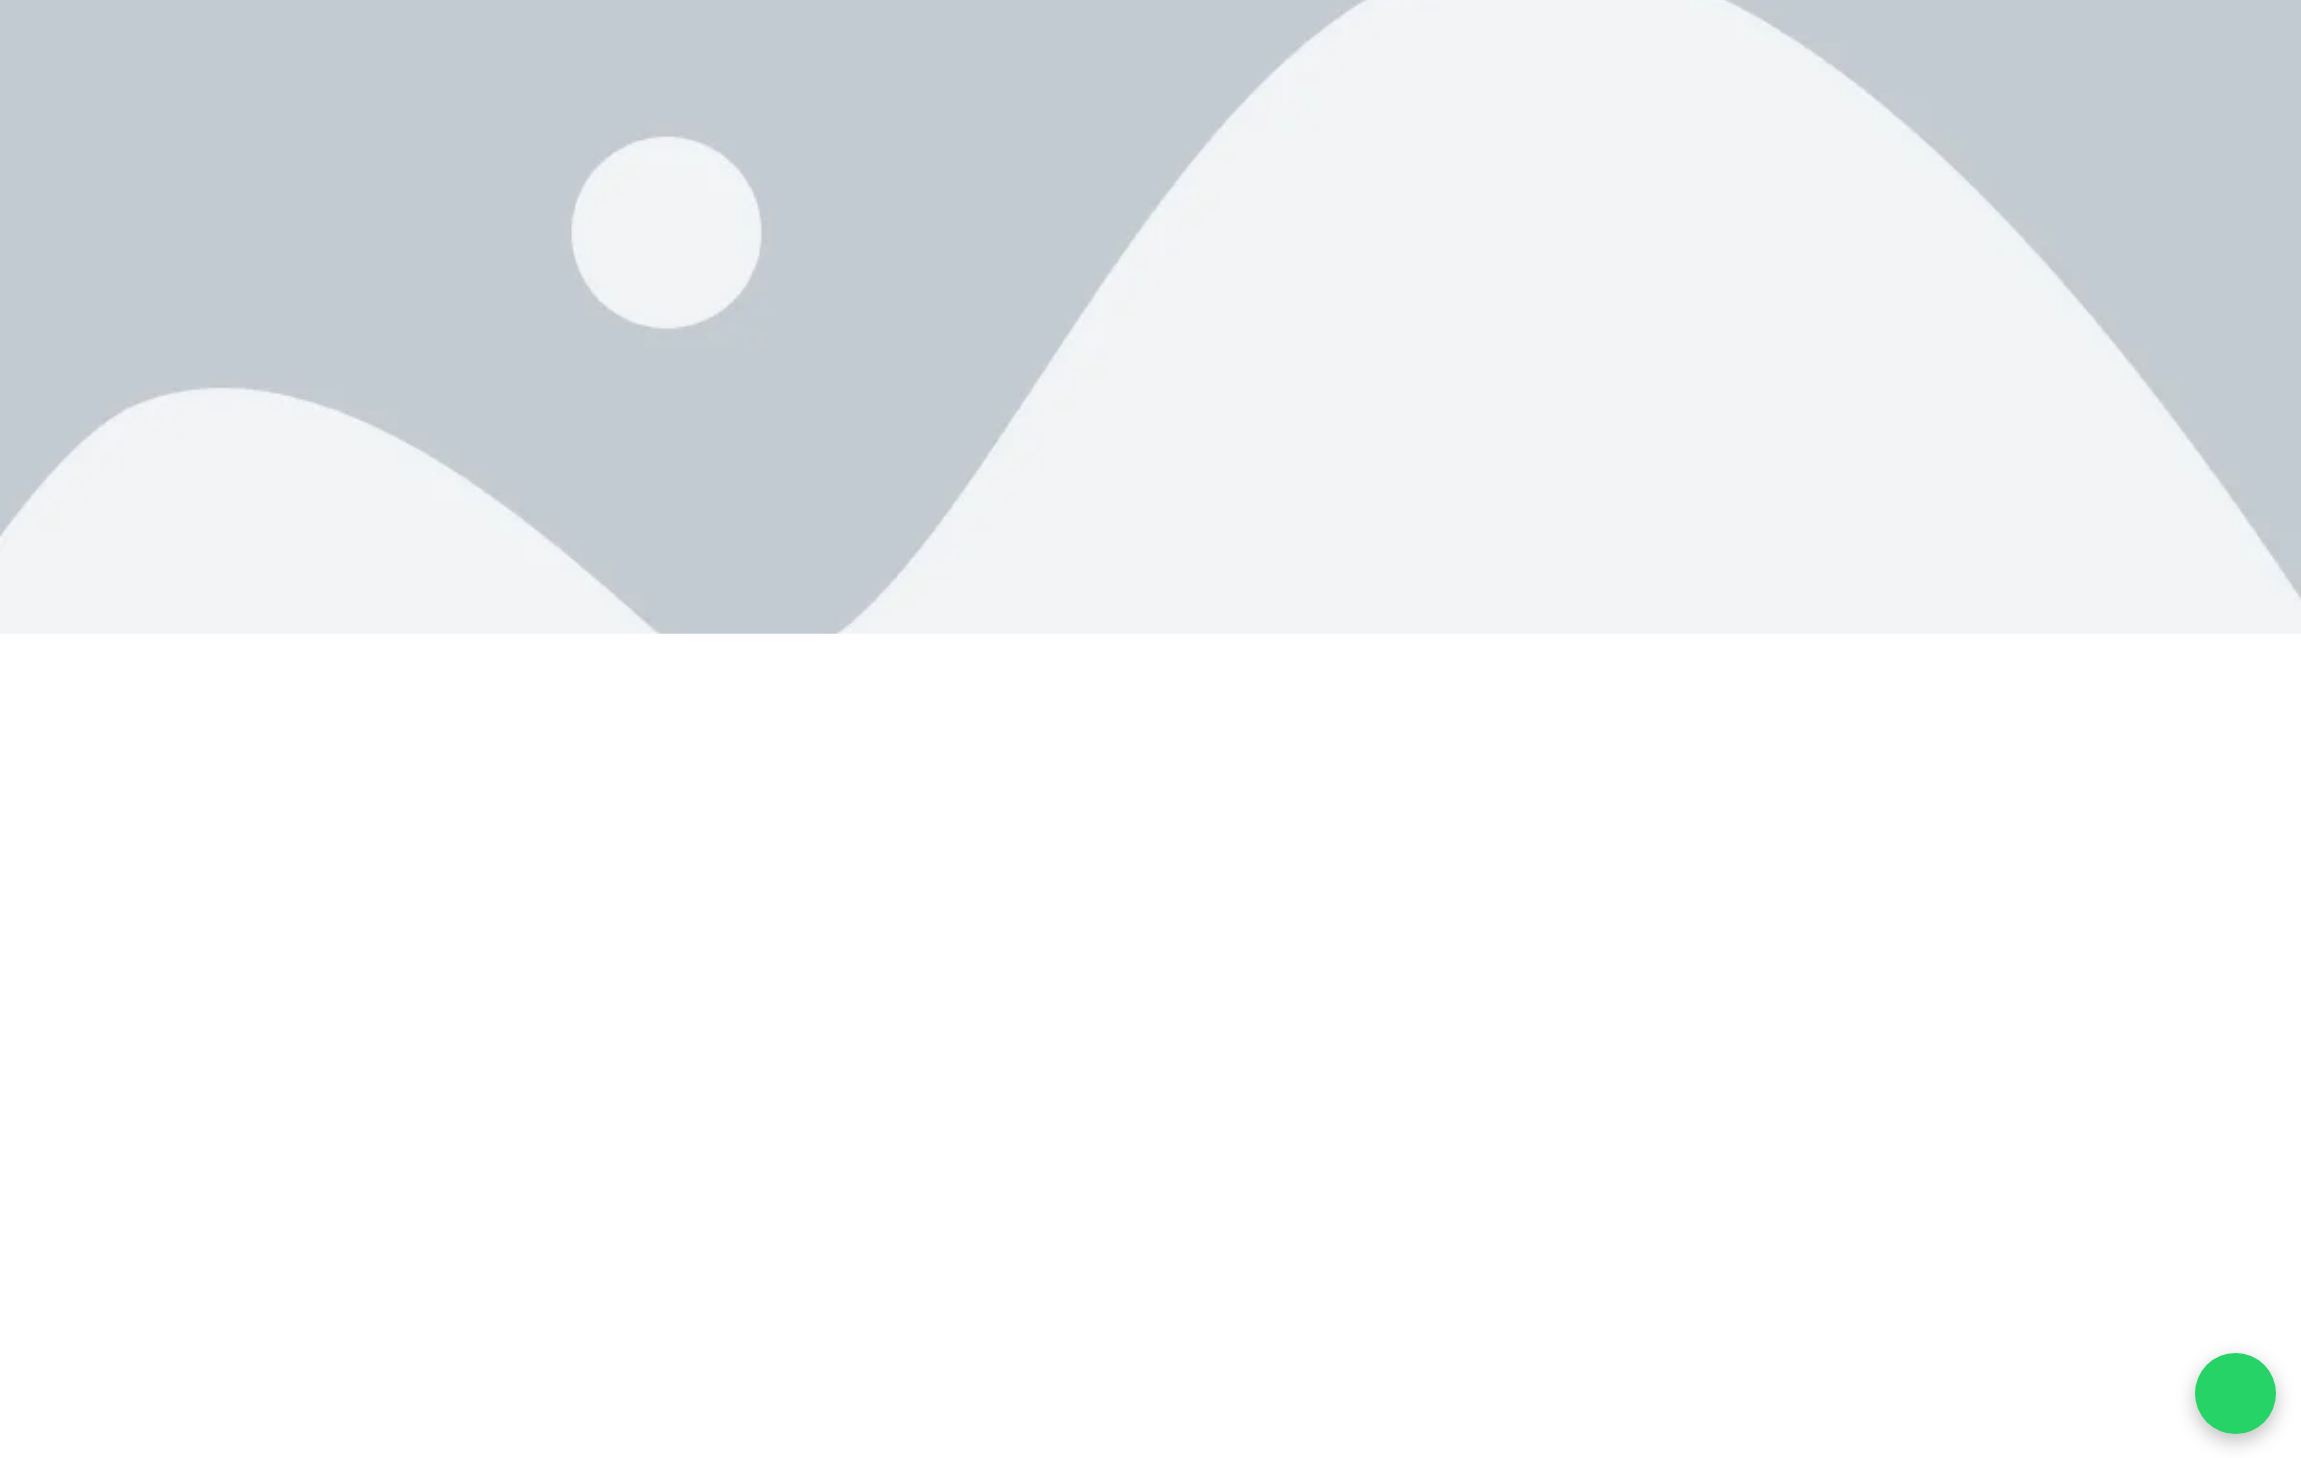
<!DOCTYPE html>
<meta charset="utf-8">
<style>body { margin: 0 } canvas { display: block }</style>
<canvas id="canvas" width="2301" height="1458"></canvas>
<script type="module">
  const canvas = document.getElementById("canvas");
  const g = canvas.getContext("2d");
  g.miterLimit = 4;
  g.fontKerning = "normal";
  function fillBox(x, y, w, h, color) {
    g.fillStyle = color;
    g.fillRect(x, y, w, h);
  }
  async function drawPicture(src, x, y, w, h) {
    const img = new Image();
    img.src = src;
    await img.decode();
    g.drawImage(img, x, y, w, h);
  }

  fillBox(0, 0, 2301, 1458, "#FFFFFF");
  await drawPicture("pic1.png", 0, 0, 2301, 634);
  g.fillStyle = "rgba(0, 0, 0, 0.25)";
  g.filter = "blur(9.5px)";
  g.beginPath();
  g.roundRect(2195, 1360, 81, 81, 40.5);
  g.fill();
  g.filter = "none";
  g.fillStyle = "#25D366";
  g.beginPath();
  g.arc(2235.5, 1393.5, 40.5, 0, Math.PI * 2);
  g.fill();
</script>
